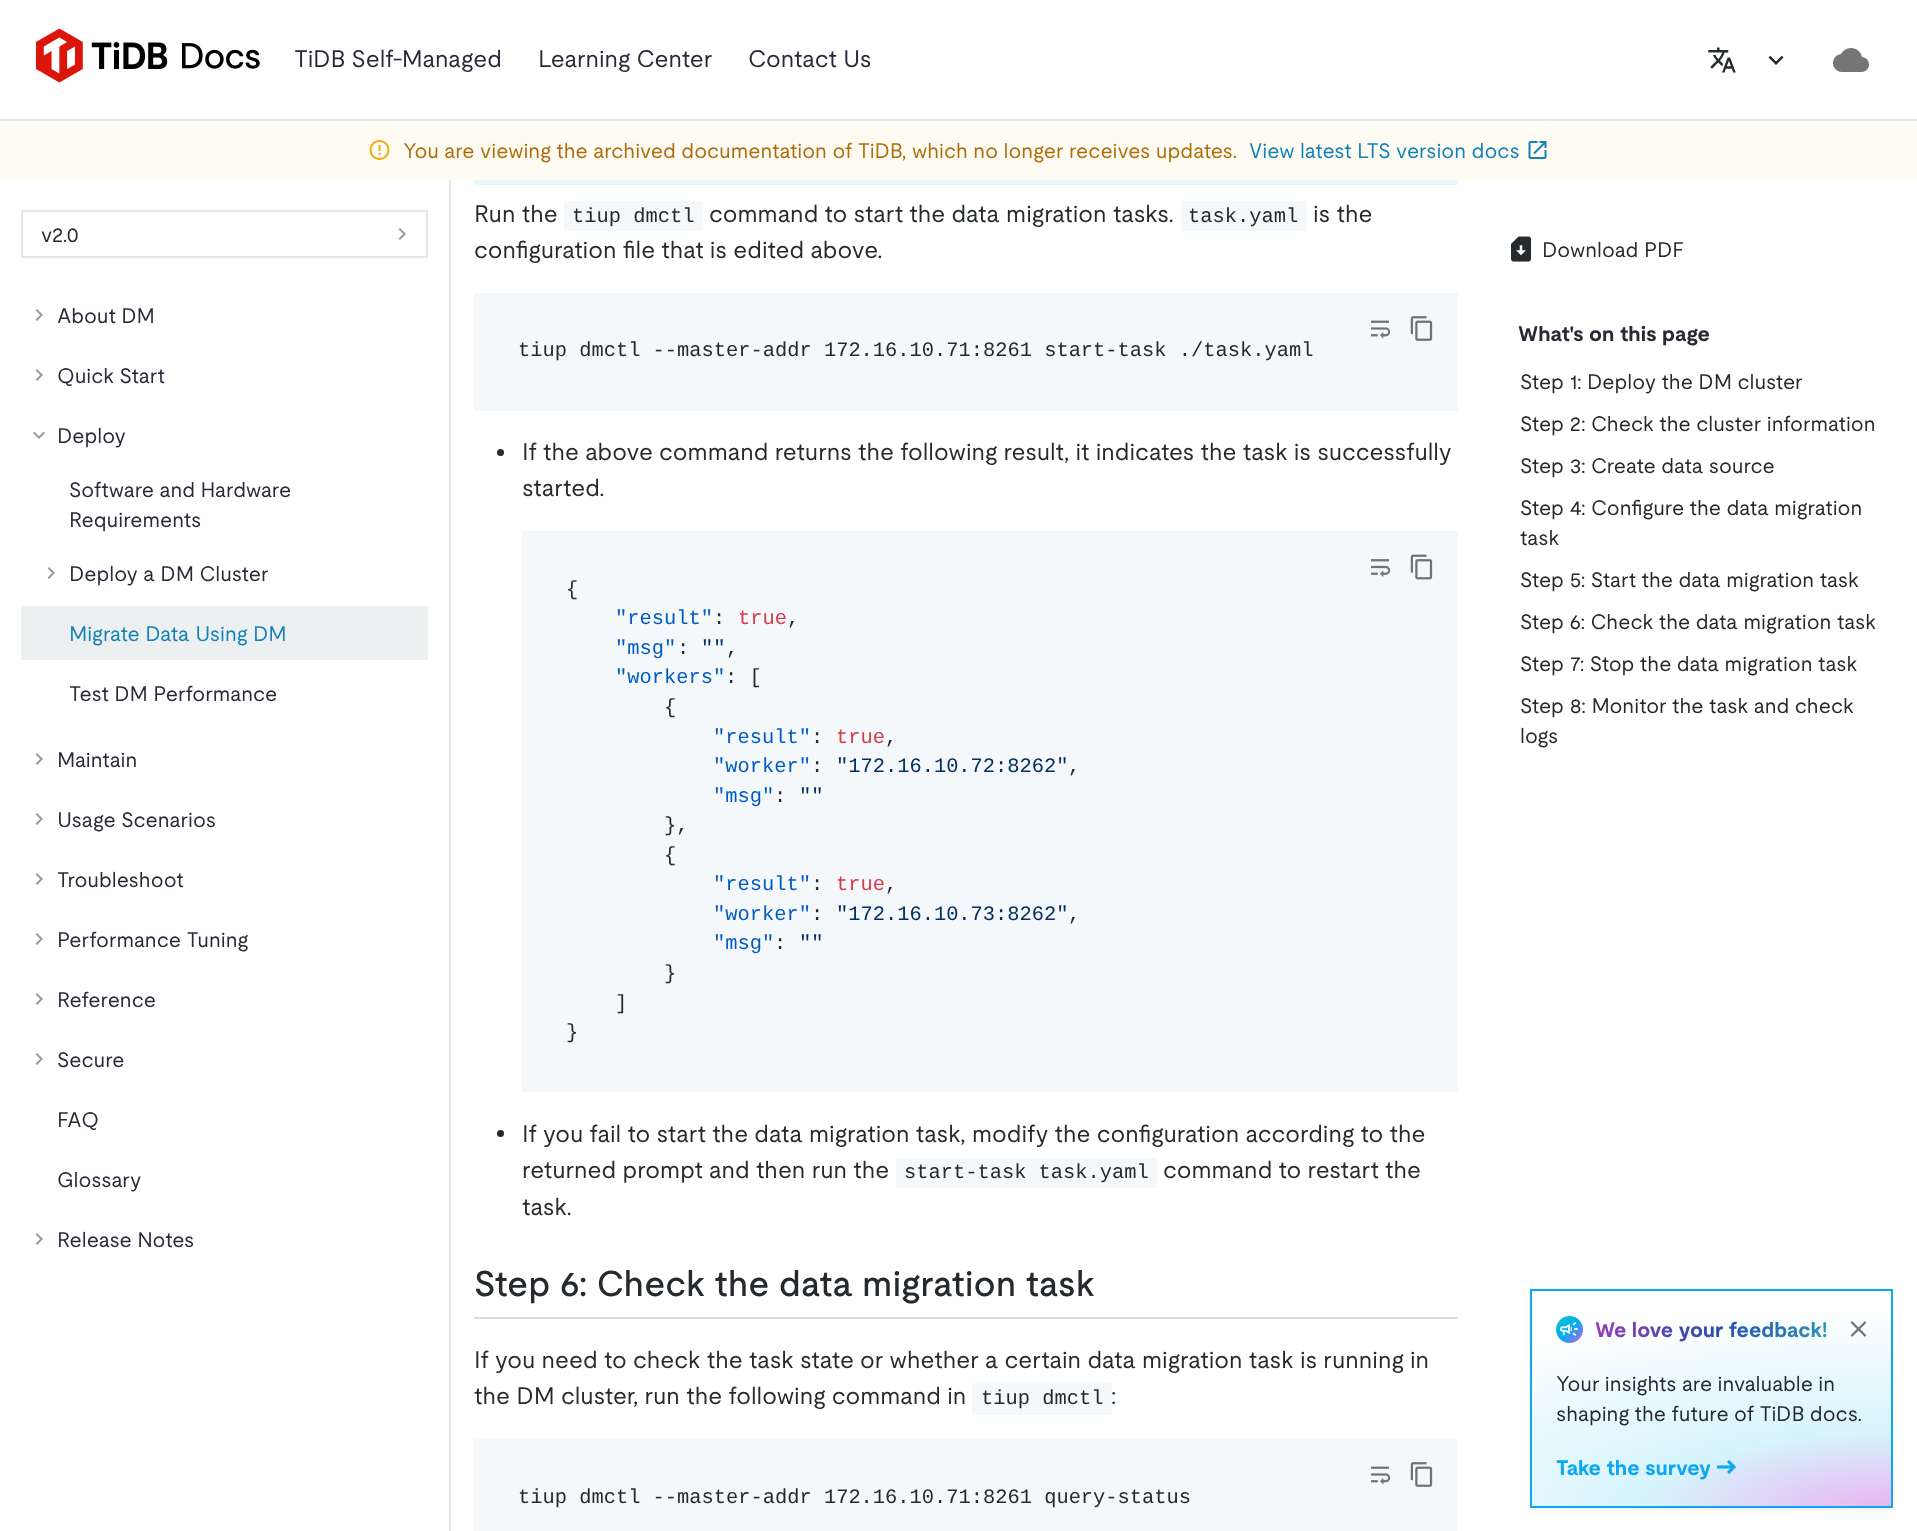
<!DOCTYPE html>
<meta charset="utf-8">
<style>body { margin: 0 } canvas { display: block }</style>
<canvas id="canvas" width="1917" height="1531"></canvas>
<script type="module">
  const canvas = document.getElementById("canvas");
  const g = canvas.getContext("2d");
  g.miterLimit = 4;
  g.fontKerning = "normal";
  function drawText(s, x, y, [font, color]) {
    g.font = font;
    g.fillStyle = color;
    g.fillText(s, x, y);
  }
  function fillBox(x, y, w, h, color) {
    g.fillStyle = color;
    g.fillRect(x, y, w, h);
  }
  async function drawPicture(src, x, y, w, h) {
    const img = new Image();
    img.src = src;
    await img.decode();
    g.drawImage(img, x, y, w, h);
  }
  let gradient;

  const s1 = ["24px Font", "#282A36"];
  const s2 = ["21px Font", "#AE6D0C"];
  const s3 = ["21px Font", "#1480B8"];
  const s4 = ["21px Font", "#262A2C"];
  const s5 = ["21px Font", "#282A36"];
  const s6 = ["24px Font", "#262A2C"];
  const s7 = ["20.4px Liberation Mono", "#262A2C"];
  const s8 = ["20.4px Liberation Mono", "#005CC5"];
  const s9 = ["20.4px Liberation Mono", "#D73A49"];
  const s10 = ["20.4px Liberation Mono", "#032F62"];
  const s11 = ["500 36px Font", "#262A2C"];
  const s12 = ["bold 21px Font", "#282A36"];
  const s13 = ["bold 21px Font", "#0CA6F2"];

  fillBox(0, 0, 1917, 1531, "#FFFFFF");
  fillBox(0, 119, 1917, 2, "#E3E8EA");
  await drawPicture("pic1.png", 36, 29, 224, 54);
  drawText("TiDB Self-Managed", 294, 67, s1);
  drawText("Learning Center", 538, 67, s1);
  drawText("Contact Us", 748, 67, s1);
  await drawPicture("pic2.png", 1708, 47, 28, 26);
  await drawPicture("pic3.png", 1768, 55, 16, 10);
  await drawPicture("pic4.png", 1833, 48, 36, 24);
  fillBox(0, 121, 1917, 59, "#FEFBF3");
  await drawPicture("pic5.png", 369, 140, 21, 20);
  drawText("You are viewing the archived documentation of TiDB, which no longer receives updates.", 403, 158, s2);
  drawText("View latest LTS version docs", 1249, 158, s3);
  await drawPicture("pic6.png", 1528, 141, 19, 18);
  fillBox(449, 180, 2, 1351, "#E5E4E4");
  g.strokeStyle = "#E5E5E5";
  g.lineWidth = 2;
  g.strokeRect(22, 211, 405, 46);
  drawText("v2.0", 41, 242, s4);
  await drawPicture("pic7.png", 398, 228, 8, 12);
  await drawPicture("pic7.png", 35, 309, 8, 12);
  drawText("About DM", 57, 323, s5);
  await drawPicture("pic7.png", 35, 369, 8, 12);
  drawText("Quick Start", 57, 383, s5);
  await drawPicture("pic8.png", 33, 431, 12, 8);
  drawText("Deploy", 57, 443, s5);
  drawText("Software and Hardware", 69, 497, s5);
  drawText("Requirements", 69, 527, s5);
  await drawPicture("pic7.png", 47, 567, 8, 12);
  drawText("Deploy a DM Cluster", 69, 581, s5);
  fillBox(21, 606, 407, 54, "#EDF0F1");
  drawText("Migrate Data Using DM", 69, 641, s3);
  drawText("Test DM Performance", 69, 701, s5);
  await drawPicture("pic7.png", 35, 753, 8, 12);
  drawText("Maintain", 57, 767, s5);
  await drawPicture("pic7.png", 35, 813, 8, 12);
  drawText("Usage Scenarios", 57, 827, s5);
  await drawPicture("pic7.png", 35, 873, 8, 12);
  drawText("Troubleshoot", 57, 887, s5);
  await drawPicture("pic7.png", 35, 933, 8, 12);
  drawText("Performance Tuning", 57, 947, s5);
  await drawPicture("pic7.png", 35, 993, 8, 12);
  drawText("Reference", 57, 1007, s5);
  await drawPicture("pic7.png", 35, 1053, 8, 12);
  drawText("Secure", 57, 1067, s5);
  drawText("FAQ", 57, 1127, s5);
  drawText("Glossary", 57, 1187, s5);
  await drawPicture("pic7.png", 35, 1233, 8, 12);
  drawText("Release Notes", 57, 1247, s5);
  fillBox(474, 180, 984, 5, "#E5F6FD");
  drawText("Run the", 474, 222, s6);
  fillBox(564, 201, 138, 30, "#F5F8FA");
  drawText("tiup dmctl", 572, 222, s7);
  drawText("command to start the data migration tasks.", 709, 222, s6);
  fillBox(1181, 201, 126, 30, "#F5F8FA");
  drawText("task.yaml", 1188, 222, s7);
  drawText("is the", 1313, 222, s6);
  drawText("configuration file that is edited above.", 474, 258, s6);
  fillBox(474, 293, 984, 118, "#F5F8FA");
  await drawPicture("pic9.png", 1371, 320, 20, 19);
  await drawPicture("pic10.png", 1410, 316, 23, 25);
  drawText("tiup dmctl --master-addr 172.16.10.71:8261 start-task ./task.yaml", 518, 356, s7);
  g.beginPath();
  g.arc(500.5, 452.5, 3.5, 0, Math.PI * 2);
  g.fill();
  drawText("If the above command returns the following result, it indicates the task is successfully", 522, 460, s6);
  drawText("started.", 522, 496, s6);
  fillBox(522, 531, 936, 561, "#F5F8FA");
  await drawPicture("pic11.png", 1371, 559, 20, 18);
  await drawPicture("pic12.png", 1410, 554, 23, 26);
  drawText("{", 566, 595, s7);
  drawText("\"result\"", 615, 624, s8);
  drawText(":", 713, 624, s7);
  drawText("true", 738, 624, s9);
  drawText(",", 787, 624, s7);
  drawText("\"msg\"", 615, 654, s8);
  drawText(":", 677, 654, s7);
  drawText("\"\"", 701, 654, s10);
  drawText(",", 726, 654, s7);
  drawText("\"workers\"", 615, 683, s8);
  drawText(": [", 725, 683, s7);
  drawText("{", 664, 713, s7);
  drawText("\"result\"", 713, 743, s8);
  drawText(":", 811, 743, s7);
  drawText("true", 836, 743, s9);
  drawText(",", 885, 743, s7);
  drawText("\"worker\"", 713, 772, s8);
  drawText(":", 811, 772, s7);
  drawText("\"172.16.10.72:8262\"", 836, 772, s10);
  drawText(",", 1068, 772, s7);
  drawText("\"msg\"", 713, 802, s8);
  drawText(":", 774, 802, s7);
  drawText("\"\"", 799, 802, s10);
  drawText("},", 664, 831, s7);
  drawText("{", 664, 861, s7);
  drawText("\"result\"", 713, 890, s8);
  drawText(":", 811, 890, s7);
  drawText("true", 836, 890, s9);
  drawText(",", 885, 890, s7);
  drawText("\"worker\"", 713, 920, s8);
  drawText(":", 811, 920, s7);
  drawText("\"172.16.10.73:8262\"", 836, 920, s10);
  drawText(",", 1068, 920, s7);
  drawText("\"msg\"", 713, 949, s8);
  drawText(":", 774, 949, s7);
  drawText("\"\"", 799, 949, s10);
  drawText("}", 664, 979, s7);
  drawText("]", 615, 1009, s7);
  drawText("}", 566, 1038, s7);
  g.beginPath();
  g.arc(500.5, 1133.5, 3.5, 0, Math.PI * 2);
  g.fill();
  drawText("If you fail to start the data migration task, modify the configuration according to the", 522, 1142, s6);
  drawText("returned prompt and then run the", 522, 1178, s6);
  fillBox(896, 1158, 261, 30, "#F5F8FA");
  drawText("start-task task.yaml", 904, 1178, s7);
  drawText("command to restart the", 1163, 1178, s6);
  drawText("task.", 522, 1215, s6);
  fillBox(474, 1317, 984, 2, "#D8DEE4");
  drawText("Step 6: Check the data migration task", 474, 1296, s11);
  drawText("If you need to check the task state or whether a certain data migration task is running in", 474, 1368, s6);
  drawText("the DM cluster, run the following command in", 474, 1404, s6);
  fillBox(972, 1383, 140, 32, "#F5F8FA");
  drawText("tiup dmctl", 981, 1404, s7);
  drawText(":", 1111, 1404, s6);
  fillBox(474, 1439, 984, 92, "#F5F8FA");
  await drawPicture("pic9.png", 1371, 1466, 20, 19);
  await drawPicture("pic10.png", 1410, 1462, 23, 25);
  drawText("tiup dmctl --master-addr 172.16.10.71:8261 query-status", 518, 1503, s7);
  await drawPicture("pic13.png", 1511, 236, 20, 26);
  drawText("Download PDF", 1542, 257, s4);
  drawText("What's on this page", 1518, 341, s12);
  drawText("Step 1: Deploy the DM cluster", 1520, 389, s4);
  drawText("Step 2: Check the cluster information", 1520, 431, s4);
  drawText("Step 3: Create data source", 1520, 473, s4);
  drawText("Step 4: Configure the data migration", 1520, 515, s4);
  drawText("task", 1520, 545, s4);
  drawText("Step 5: Start the data migration task", 1520, 587, s4);
  drawText("Step 6: Check the data migration task", 1520, 629, s4);
  drawText("Step 7: Stop the data migration task", 1520, 671, s4);
  drawText("Step 8: Monitor the task and check", 1520, 713, s4);
  drawText("logs", 1520, 743, s4);
  g.fillStyle = "rgba(0, 0, 0, 0.04)";
  g.filter = "blur(3px)";
  g.beginPath();
  g.rect(1530, 1292, 363, 219);
  g.fill();
  g.filter = "none";
  gradient = g.createRadialGradient(1898, 4719.98, 0, 1898, 4719.98, 652);
  gradient.addColorStop(0, "#E9B0F3");
  gradient.addColorStop(0.39, "#D6F4FC");
  gradient.addColorStop(1, "#FFFFFF");
  g.fillStyle = gradient;
  g.beginPath();
  g.rect(1532, 1291, 359, 215);
  g.save();
  g.clip();
  g.scale(1, 209 / 652);
  g.fillRect(0, 0, 1917, 4777);
  g.restore();
  g.strokeStyle = "#0CA6F2";
  g.strokeRect(1531, 1290, 361, 217);
  gradient = g.createLinearGradient(1556, 1316, 1583, 1343);
  gradient.addColorStop(0, "#0FC7C7");
  gradient.addColorStop(0.5, "#00AEEF");
  gradient.addColorStop(1, "#CA5AF0");
  g.fillStyle = gradient;
  g.beginPath();
  g.arc(1569.5, 1329.5, 13.5, 0, Math.PI * 2);
  g.fill();
  await drawPicture("pic14.png", 1560, 1322, 18, 14);
  g.font = "bold 21px Font";
  gradient = g.createLinearGradient(1595, 1329, 1838, 1329);
  gradient.addColorStop(0, "#9A3CBB");
  gradient.addColorStop(0.5, "#284DAB");
  gradient.addColorStop(1, "#2D9BB7");
  g.fillStyle = gradient;
  g.fillText("We love your feedback!", 1595, 1337);
  await drawPicture("pic15.png", 1850, 1321, 17, 16);
  drawText("Your insights are invaluable in", 1556, 1391, s4);
  drawText("shaping the future of TiDB docs.", 1556, 1421, s4);
  drawText("Take the survey", 1556, 1475, s13);
  await drawPicture("pic16.png", 1717, 1460, 19, 14);
</script>
